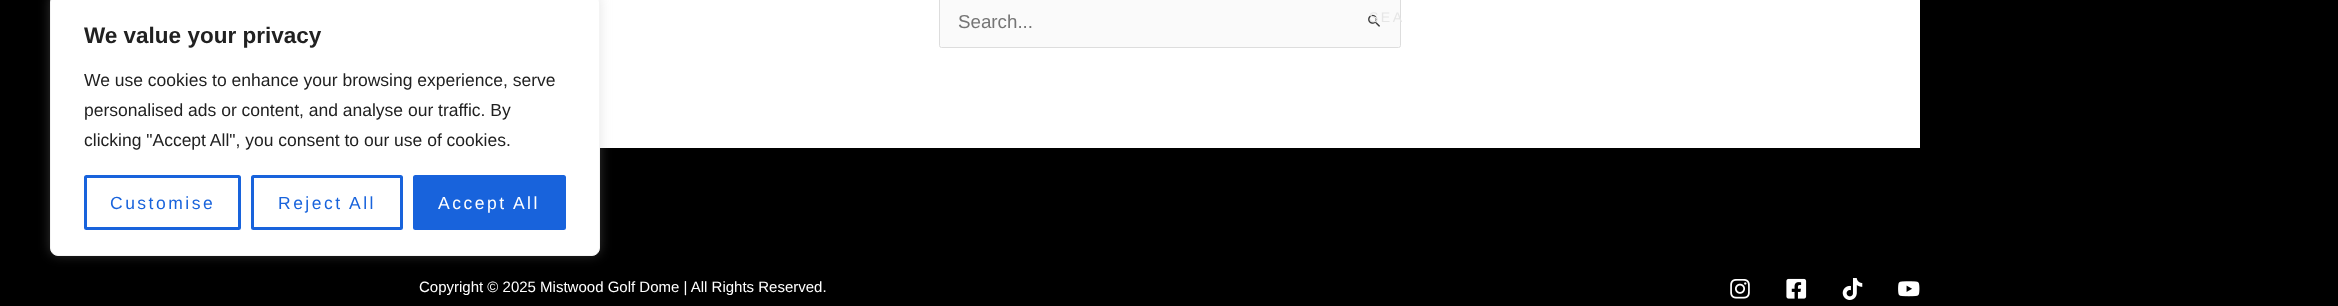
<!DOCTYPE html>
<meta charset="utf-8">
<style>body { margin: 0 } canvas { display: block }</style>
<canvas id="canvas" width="2338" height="306"></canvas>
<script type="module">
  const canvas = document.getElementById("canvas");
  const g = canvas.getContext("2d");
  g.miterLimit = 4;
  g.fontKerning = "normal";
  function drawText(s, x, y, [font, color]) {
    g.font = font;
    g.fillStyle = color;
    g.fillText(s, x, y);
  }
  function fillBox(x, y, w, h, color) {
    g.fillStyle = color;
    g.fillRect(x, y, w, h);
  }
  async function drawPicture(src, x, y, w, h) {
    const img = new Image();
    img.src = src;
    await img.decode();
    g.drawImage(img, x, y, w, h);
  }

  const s1 = ["bold 22.5px Liberation Sans", "#212121"];
  const s2 = ["17.5px Liberation Sans", "#212121"];
  const s3 = ["17.5px Liberation Sans", "#1863DC"];
  const s4 = ["17.5px Liberation Sans", "#FFFFFF"];
  const s5 = ["18.75px Liberation Sans", "#757575"];
  const s6 = ["14px Liberation Sans", "#E6E6E6"];
  const s7 = ["15px Liberation Sans", "#FFFFFF"];

  fillBox(0, 0, 2338, 306, "#000000");
  fillBox(599, 0, 1321, 148, "#FFFFFF");
  g.fillStyle = "rgba(172, 171, 171, 0.3)";
  g.filter = "blur(6px)";
  g.beginPath();
  g.roundRect(50, -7, 550, 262, 8);
  g.fill();
  g.filter = "none";
  g.fillStyle = "#FFFFFF";
  g.beginPath();
  g.roundRect(50.5, -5.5, 549, 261, 7.5);
  g.fill();
  g.strokeStyle = "#F4F4F4";
  g.stroke();
  drawText("We value your privacy", 84, 43, s1);
  drawText("We use cookies to enhance your browsing experience, serve", 84, 86, s2);
  drawText("personalised ads or content, and analyse our traffic. By", 84, 116, s2);
  drawText("clicking \"Accept All\", you consent to our use of cookies.", 84, 146, s2);
  g.beginPath();
  g.roundRect(85.5, 176.5, 154, 52, 1);
  g.strokeStyle = "#1863DC";
  g.lineWidth = 3;
  g.stroke();
  g.letterSpacing = "2.5px";
  drawText("Customise", 110, 209, s3);
  g.beginPath();
  g.roundRect(252.5, 176.5, 149, 52, 1);
  g.stroke();
  drawText("Reject All", 278, 209, s3);
  g.beginPath();
  g.roundRect(414.5, 176.5, 150, 52, 1);
  g.fill();
  g.stroke();
  drawText("Accept All", 438, 209, s4);
  g.fillStyle = "#FAFAFA";
  g.beginPath();
  g.roundRect(939.5, -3.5, 461, 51, 2);
  g.fill();
  g.strokeStyle = "#DDDDDD";
  g.lineWidth = 1;
  g.stroke();
  g.letterSpacing = "0px";
  drawText("Search...", 958, 28, s5);
  await drawPicture("pic1.png", 1368, 14, 12, 13);
  g.letterSpacing = "2.5px";
  drawText("SEA", 1369, 22, s6);
  g.letterSpacing = "0px";
  drawText("Copyright © 2025 Mistwood Golf Dome | All Rights Reserved.", 419, 292, s7);
  await drawPicture("pic2.png", 1730, 279, 20, 20);
  await drawPicture("pic3.png", 1786, 278, 21, 21);
  await drawPicture("pic4.png", 1842, 278, 21, 22);
  await drawPicture("pic5.png", 1898, 281, 22, 16);
</script>
